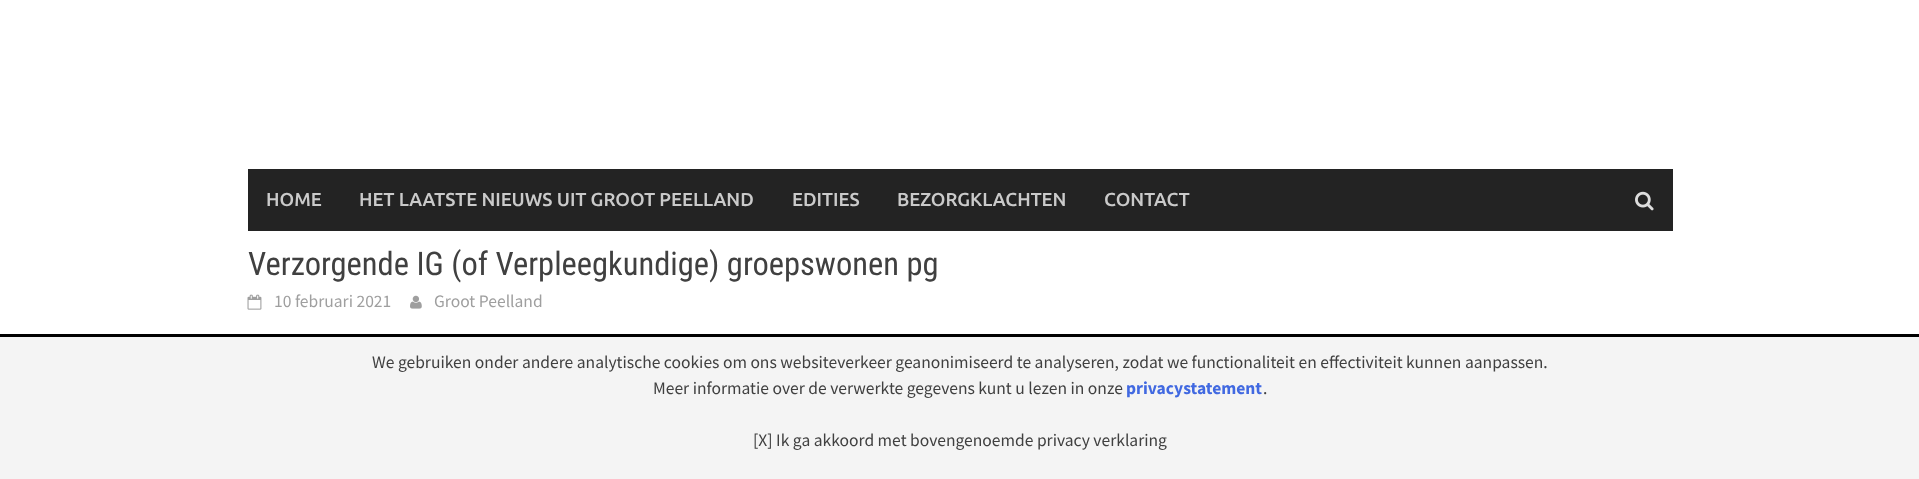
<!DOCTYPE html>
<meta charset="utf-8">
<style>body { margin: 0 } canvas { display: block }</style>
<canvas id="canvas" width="1919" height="479"></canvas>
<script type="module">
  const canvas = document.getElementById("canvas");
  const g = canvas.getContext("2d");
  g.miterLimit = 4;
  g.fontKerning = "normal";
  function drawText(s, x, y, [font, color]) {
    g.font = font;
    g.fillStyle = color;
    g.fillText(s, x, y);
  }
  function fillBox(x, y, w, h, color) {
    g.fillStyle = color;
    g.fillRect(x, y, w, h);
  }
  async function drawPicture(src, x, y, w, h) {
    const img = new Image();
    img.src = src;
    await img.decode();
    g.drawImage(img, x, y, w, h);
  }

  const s1 = ["500 18.75px Ubuntu", "#CACACA"];
  const s2 = ["32.5px Roboto Condensed", "#404040"];
  const s3 = ["17.5px Source Sans Pro", "#9F9F9F"];
  const s4 = ["17.5px Source Sans Pro", "#404040"];
  const s5 = ["bold 17.5px Source Sans Pro", "#4169E1"];

  fillBox(0, 0, 1919, 479, "#FFFFFF");
  fillBox(248, 169, 1425, 62, "#232323");
  drawText("HOME", 266, 206, s1);
  drawText("HET LAATSTE NIEUWS UIT GROOT PEELLAND", 359, 206, s1);
  drawText("EDITIES", 792, 206, s1);
  drawText("BEZORGKLACHTEN", 897, 206, s1);
  drawText("CONTACT", 1104, 206, s1);
  await drawPicture("pic1.png", 1635, 191, 19, 20);
  drawText("Verzorgende IG (of Verpleegkundige) groepswonen pg", 248, 275, s2);
  await drawPicture("pic2.png", 247, 294, 15, 16);
  drawText("10 februari 2021", 274, 307, s3);
  await drawPicture("pic3.png", 410, 295, 12, 14);
  drawText("Groot Peelland", 434, 307, s3);
  fillBox(0, 337, 1919, 142, "#F4F4F4");
  fillBox(0, 334, 1919, 3, "#000000");
  drawText("We gebruiken onder andere analytische cookies om ons websiteverkeer geanonimiseerd te analyseren, zodat we functionaliteit en effectiviteit kunnen aanpassen.", 372, 368, s4);
  drawText("Meer informatie over de verwerkte gegevens kunt u lezen in onze", 653, 394, s4);
  drawText("privacystatement", 1126, 394, s5);
  drawText(".", 1263, 394, s4);
  drawText("[X] Ik ga akkoord met bovengenoemde privacy verklaring", 753, 446, s4);
</script>
